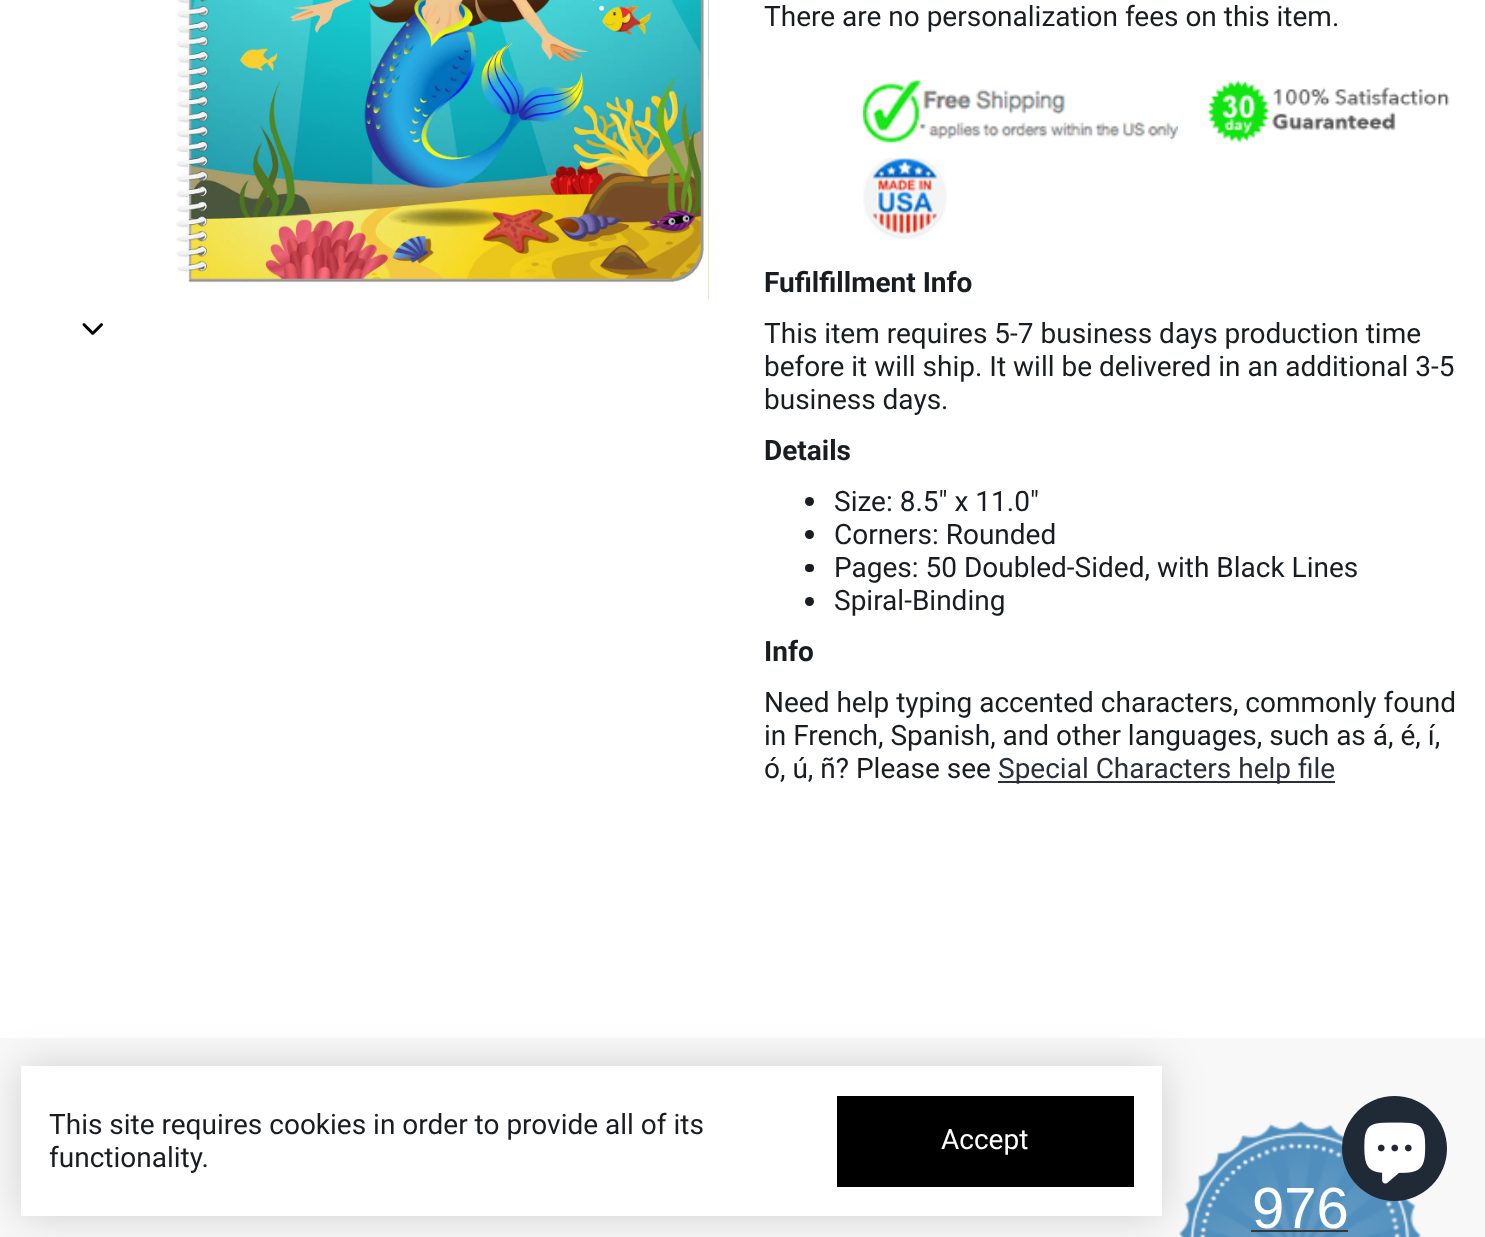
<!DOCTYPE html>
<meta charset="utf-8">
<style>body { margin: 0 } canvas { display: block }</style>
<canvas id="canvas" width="1485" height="1237"></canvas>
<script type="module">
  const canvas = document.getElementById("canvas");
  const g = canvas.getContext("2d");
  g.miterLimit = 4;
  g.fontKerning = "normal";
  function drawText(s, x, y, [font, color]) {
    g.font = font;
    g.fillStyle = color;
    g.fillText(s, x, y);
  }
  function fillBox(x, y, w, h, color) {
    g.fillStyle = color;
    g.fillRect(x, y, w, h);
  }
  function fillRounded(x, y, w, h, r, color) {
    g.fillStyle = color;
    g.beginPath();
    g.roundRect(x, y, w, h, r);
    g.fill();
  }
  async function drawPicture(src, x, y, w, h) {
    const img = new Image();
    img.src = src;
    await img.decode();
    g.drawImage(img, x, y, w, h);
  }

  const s1 = ["28px Roboto", "#191D21"];
  const s2 = ["bold 28px Roboto", "#191D21"];
  const s3 = ["28px Roboto", "#2B2F3D"];
  const s4 = ["58px Liberation Sans", "#FFFFFF"];
  const s5 = ["28px Roboto", "#FFFFFF"];

  fillBox(0, 0, 1485, 1237, "#FFFFFF");
  await drawPicture("pic1.png", 176, 0, 528, 283);
  await drawPicture("pic2.png", 708, 0, 1, 300);
  await drawPicture("pic3.png", 82, 323, 21, 12);
  drawText("There are no personalization fees on this item.", 764, 26, s1);
  await drawPicture("pic4.png", 863, 79, 315, 65);
  await drawPicture("pic5.png", 1207, 80, 243, 63);
  await drawPicture("pic6.png", 863, 158, 84, 81);
  drawText("Fufilfillment Info", 764, 292, s2);
  drawText("This item requires 5-7 business days production time", 764, 343, s1);
  drawText("before it will ship. It will be delivered in an additional 3-5", 764, 376, s1);
  drawText("business days.", 764, 409, s1);
  drawText("Details", 764, 460, s2);
  g.beginPath();
  g.arc(809.5, 501.5, 4.5, 0, Math.PI * 2);
  g.fill();
  drawText("Size: 8.5\" x 11.0\"", 834, 511, s1);
  g.beginPath();
  g.arc(809.5, 534.5, 4.5, 0, Math.PI * 2);
  g.fill();
  drawText("Corners: Rounded", 834, 544, s1);
  fillRounded(805, 564, 9, 8, 4, "#191D21");
  drawText("Pages: 50 Doubled-Sided, with Black Lines", 834, 577, s1);
  g.beginPath();
  g.arc(809.5, 601.5, 4.5, 0, Math.PI * 2);
  g.fill();
  drawText("Spiral-Binding", 834, 610, s1);
  drawText("Info", 764, 661, s2);
  drawText("Need help typing accented characters, commonly found", 764, 712, s1);
  drawText("in French, Spanish, and other languages, such as á, é, í,", 764, 745, s1);
  drawText("ó, ú, ñ? Please see", 764, 778, s1);
  fillBox(998, 781, 337, 2, "#2B2F3D");
  drawText("Special Characters help file", 998, 778, s3);
  fillBox(0, 1038, 1485, 199, "#F8F8F8");
  await drawPicture("pic7.png", 1179, 1121, 243, 116);
  drawText("976", 1252, 1228, s4);
  fillBox(1251, 1230, 97, 2, "#373737");
  g.fillStyle = "rgba(0, 0, 0, 0.16)";
  g.filter = "blur(21px)";
  g.beginPath();
  g.rect(21, 1066, 1141, 150);
  g.fill();
  g.filter = "none";
  fillBox(21, 1066, 1141, 150, "#FFFFFF");
  drawText("This site requires cookies in order to provide all of its", 49, 1134, s1);
  drawText("functionality.", 49, 1167, s1);
  fillBox(837, 1096, 297, 91, "#000000");
  drawText("Accept", 941, 1149, s5);
  g.fillStyle = "#202A36";
  g.beginPath();
  g.arc(1394.5, 1148.5, 52.5, 0, Math.PI * 2);
  g.fill();
  await drawPicture("pic8.png", 1364, 1122, 62, 62);
</script>
